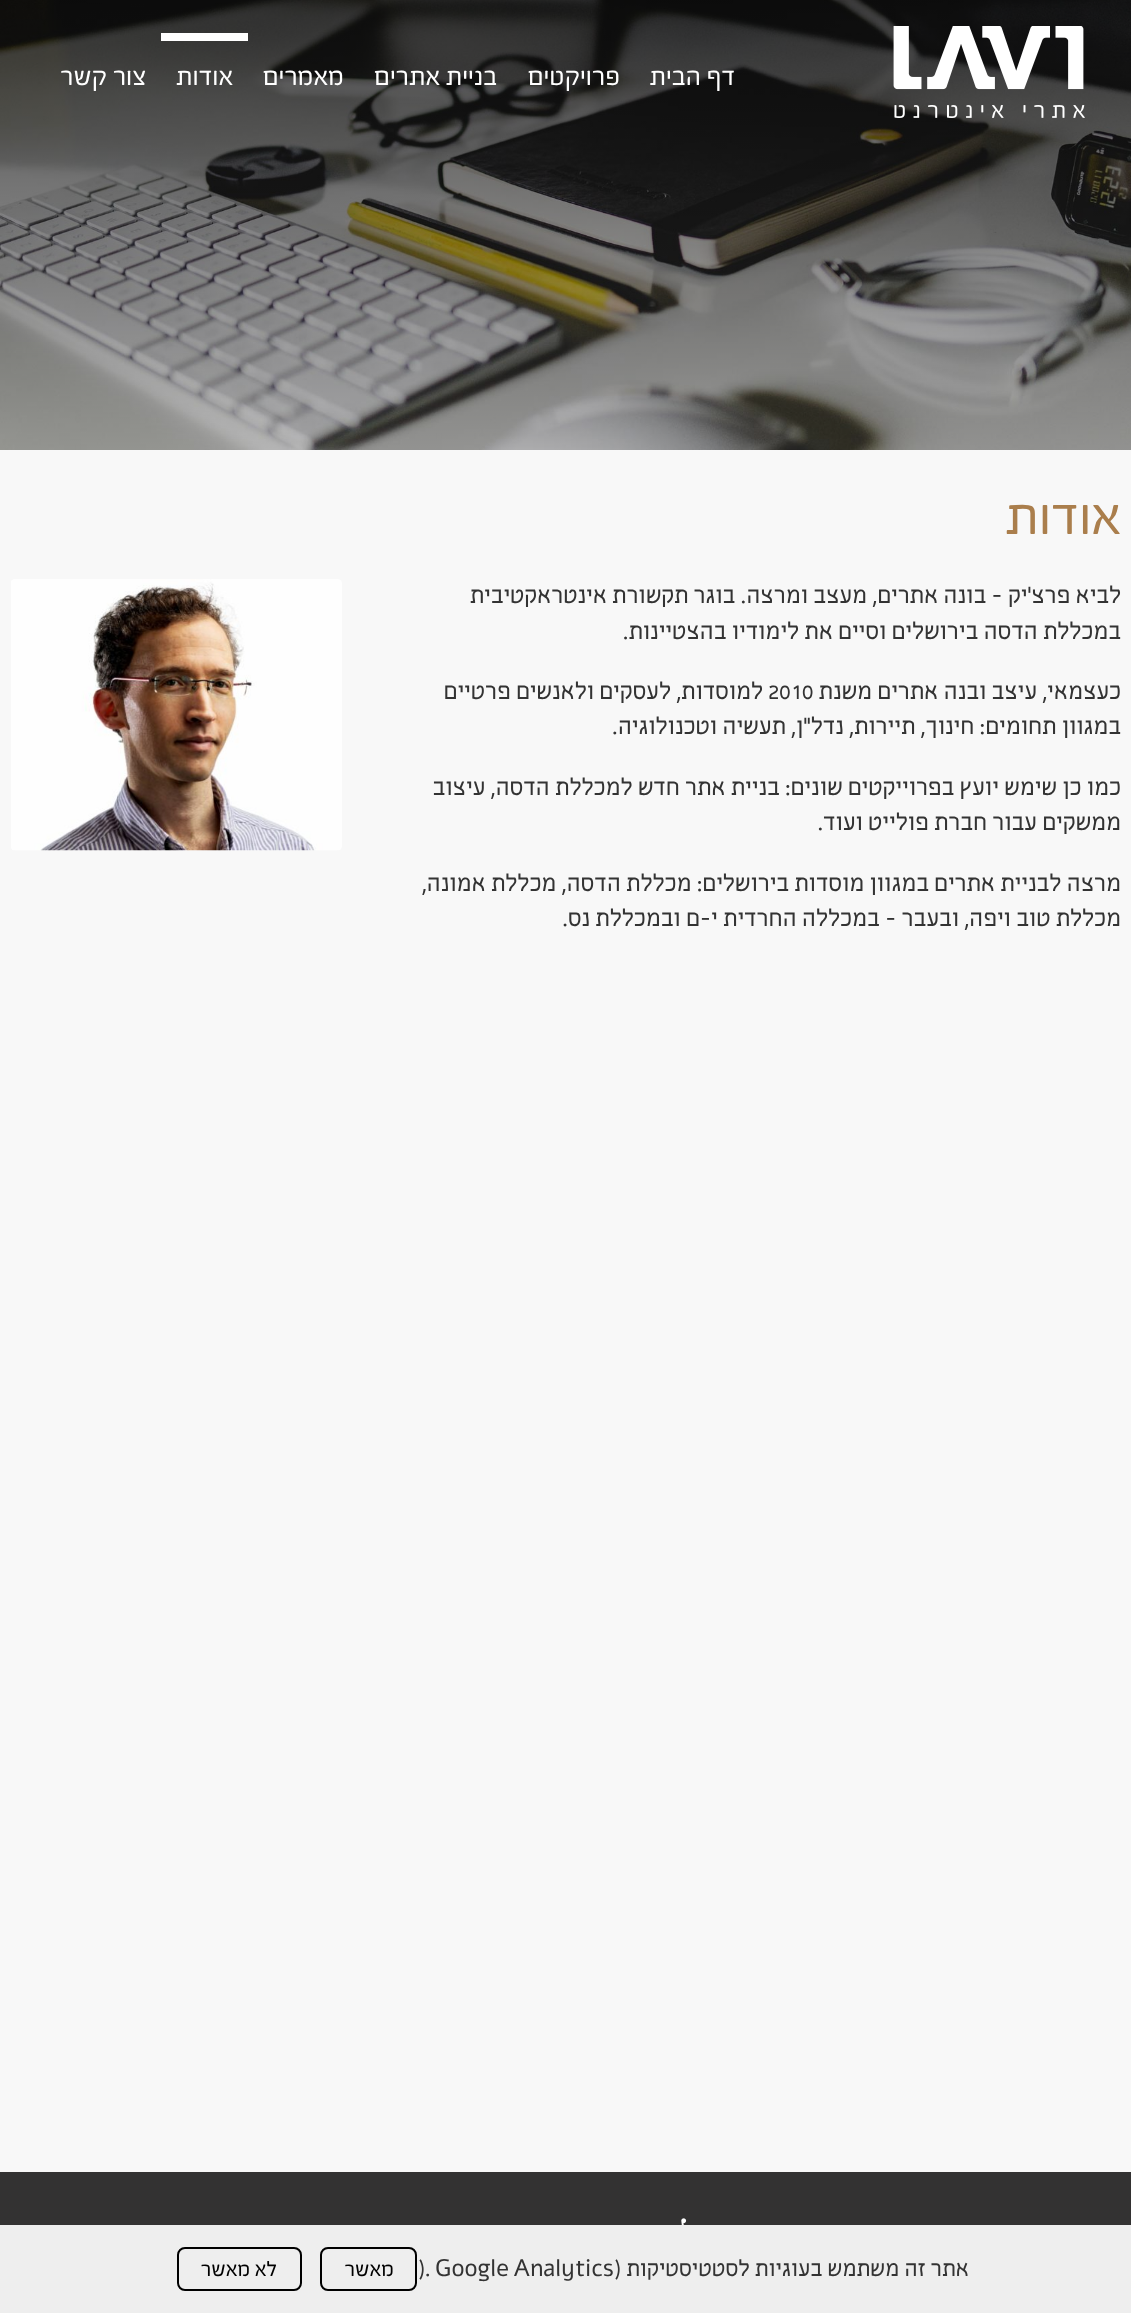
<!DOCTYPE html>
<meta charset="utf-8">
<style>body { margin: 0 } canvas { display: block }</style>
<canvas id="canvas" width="1131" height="2313"></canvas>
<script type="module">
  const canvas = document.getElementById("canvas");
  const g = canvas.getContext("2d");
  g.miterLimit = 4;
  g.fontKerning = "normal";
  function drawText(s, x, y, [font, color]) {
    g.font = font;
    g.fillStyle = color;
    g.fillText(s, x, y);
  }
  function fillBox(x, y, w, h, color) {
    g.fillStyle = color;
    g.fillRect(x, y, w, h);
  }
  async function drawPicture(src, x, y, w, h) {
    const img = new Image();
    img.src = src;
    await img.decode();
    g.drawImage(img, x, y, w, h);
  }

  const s1 = ["30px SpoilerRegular", "#FFFFFF"];
  const s2 = ["61px SpoilerRegular", "#AA7E4C"];
  const s3 = ["25.2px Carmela", "#333333"];
  const s4 = ["24px Carmela", "#333333"];
  const s5 = ["24px Alef", "#333333"];
  const s6 = ["24px SpoilerRegular", "#000000"];

  fillBox(0, 0, 1131, 2313, "#F8F8F8");
  await drawPicture("pic2.png", 0, 0, 1131, 450);
  await drawPicture("pic1.png", 893, 26, 192, 92);
  g.direction = "rtl";
  drawText("דף הבית", 735, 85, s1);
  drawText("פרויקטים", 620, 85, s1);
  drawText("בניית אתרים", 497, 85, s1);
  drawText("מאמרים", 344, 85, s1);
  fillBox(161, 33, 87, 8, "#FFFFFF");
  drawText("אודות", 233, 85, s1);
  drawText("צור קשר", 146, 85, s1);
  drawText("אודות", 1121, 534, s2);
  drawText("לביא פרצ׳יק - בונה אתרים, מעצב ומרצה. בוגר תקשורת אינטראקטיבית", 1121, 603, s3);
  drawText("במכללת הדסה בירושלים וסיים את לימודיו בהצטיינות.", 1121, 639, s3);
  drawText("כעצמאי, עיצב ובנה אתרים משנת", 1121, 699, s3);
  g.direction = "ltr";
  drawText("2010", 768, 699, s3);
  g.direction = "rtl";
  drawText("למוסדות, לעסקים ולאנשים פרטיים", 763, 699, s3);
  drawText("במגוון תחומים: חינוך, תיירות, נדל״ן, תעשיה וטכנולוגיה.", 1121, 734, s3);
  drawText("כמו כן שימש יועץ בפרוייקטים שונים: בניית אתר חדש למכללת הדסה, עיצוב", 1121, 795, s3);
  drawText("ממשקים עבור חברת פולייט ועוד.", 1121, 830, s3);
  drawText("מרצה לבניית אתרים במגוון מוסדות בירושלים: מכללת הדסה, מכללת אמונה,", 1121, 891, s3);
  drawText("מכללת טוב ויפה, ובעבר - במכללה החרדית י-ם ובמכללת נס.", 1121, 926, s3);
  await drawPicture("pic3.png", 11, 579, 331, 272);
  fillBox(0, 2172, 1131, 53, "#333232");
  await drawPicture("pic4.png", 681, 2218, 6, 7);
  fillBox(0, 2225, 1131, 88, "#EEEEEE");
  drawText("אתר זה משתמש בעוגיות לסטטיסטיקות (", 969, 2276, s4);
  g.wordSpacing = "-2px";
  g.direction = "ltr";
  drawText("Google Analytics", 435, 2276, s5);
  g.wordSpacing = "0px";
  drawText(").", 418, 2276, s4);
  g.beginPath();
  g.roundRect(321, 2248, 95, 42, 7);
  g.strokeStyle = "#000000";
  g.lineWidth = 2;
  g.stroke();
  g.direction = "rtl";
  drawText("מאשר", 394, 2276, s6);
  g.beginPath();
  g.roundRect(178, 2248, 123, 42, 7);
  g.stroke();
  drawText("לא מאשר", 277, 2276, s6);
</script>
